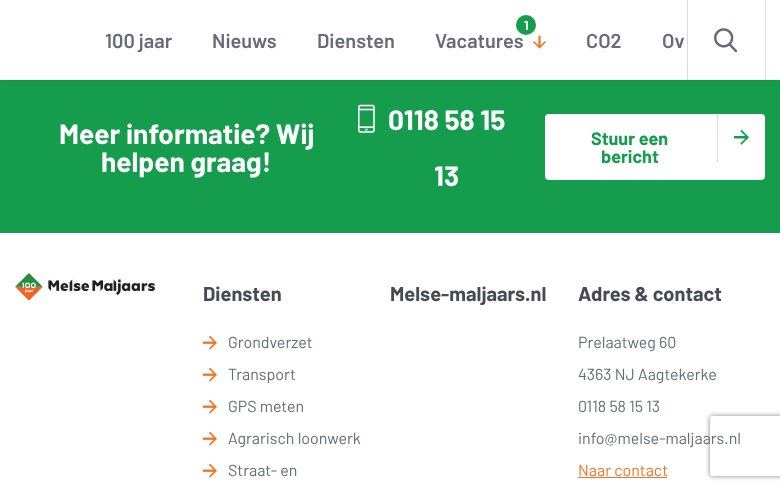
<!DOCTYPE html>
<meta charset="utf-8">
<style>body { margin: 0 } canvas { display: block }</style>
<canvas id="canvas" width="780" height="490"></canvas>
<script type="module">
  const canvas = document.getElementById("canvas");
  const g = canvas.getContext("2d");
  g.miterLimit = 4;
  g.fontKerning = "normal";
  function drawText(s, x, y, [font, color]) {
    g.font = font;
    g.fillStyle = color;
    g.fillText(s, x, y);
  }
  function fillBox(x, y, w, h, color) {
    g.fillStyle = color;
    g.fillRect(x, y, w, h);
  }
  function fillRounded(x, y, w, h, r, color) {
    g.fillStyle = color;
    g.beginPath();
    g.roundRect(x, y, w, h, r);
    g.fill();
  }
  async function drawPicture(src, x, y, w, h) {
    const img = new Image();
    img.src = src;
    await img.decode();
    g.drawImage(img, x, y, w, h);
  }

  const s1 = ["600 20px Barlow", "#656B77"];
  const s2 = ["bold 13px Barlow", "#FFFFFF"];
  const s3 = ["bold 28px Barlow", "#FFFFFF"];
  const s4 = ["bold 18px Barlow", "#159C4D"];
  const s5 = ["bold 20px Barlow", "#454A53"];
  const s6 = ["16px Barlow", "#656B77"];
  const s7 = ["16px Barlow", "#F37224"];

  fillBox(0, 0, 780, 490, "#FFFFFF");
  fillBox(0, 80, 780, 153, "#159C4D");
  g.fillStyle = "rgba(46, 46, 46, 0.1)";
  g.filter = "blur(1px)";
  g.beginPath();
  g.rect(0, 1, 780, 80);
  g.fill();
  g.filter = "none";
  fillBox(0, 0, 780, 80, "#FFFFFF");
  drawText("100 jaar", 105, 48, s1);
  drawText("Nieuws", 212, 48, s1);
  drawText("Diensten", 317, 48, s1);
  drawText("Vacatures", 435, 48, s1);
  g.fillStyle = "#159C4D";
  g.beginPath();
  g.arc(526, 25, 10, 0, Math.PI * 2);
  g.fill();
  drawText("1", 524, 30, s2);
  await drawPicture("pic1.png", 533, 35, 13, 14);
  drawText("CO2", 586, 48, s1);
  drawText("Ov", 662, 48, s1);
  fillBox(765, 0, 1, 80, "#D9D9D9");
  fillBox(687, 0, 1, 80, "#D9D9D9");
  await drawPicture("pic2.png", 714, 28, 24, 25);
  drawText("Meer informatie? Wij", 59, 144, s3);
  drawText("helpen graag!", 101, 172, s3);
  await drawPicture("pic3.png", 358, 104, 17, 29);
  drawText("0118 58 15", 388, 130, s3);
  drawText("13", 434, 186, s3);
  fillRounded(545, 114, 220, 66, 4, "#FFFFFF");
  drawText("Stuur een", 591, 145, s4);
  fillBox(717, 114, 1, 48, "#D9D9D9");
  await drawPicture("pic4.png", 734, 129, 15, 16);
  drawText("bericht", 601, 163, s4);
  await drawPicture("pic5.png", 15, 273, 140, 28);
  drawText("Diensten", 203, 301, s5);
  await drawPicture("pic6.png", 203, 335, 14, 15);
  drawText("Grondverzet", 228, 348, s6);
  await drawPicture("pic6.png", 203, 367, 14, 15);
  drawText("Transport", 228, 380, s6);
  await drawPicture("pic6.png", 203, 399, 14, 15);
  drawText("GPS meten", 228, 412, s6);
  await drawPicture("pic6.png", 203, 431, 14, 15);
  drawText("Agrarisch loonwerk", 228, 444, s6);
  await drawPicture("pic6.png", 203, 463, 14, 15);
  drawText("Straat- en", 228, 476, s6);
  drawText("Melse-maljaars.nl", 390, 301, s5);
  drawText("Adres & contact", 578, 301, s5);
  drawText("Prelaatweg 60", 578, 348, s6);
  drawText("4363 NJ Aagtekerke", 578, 380, s6);
  drawText("0118 58 15 13", 578, 412, s6);
  drawText("info@melse-maljaars.nl", 578, 444, s6);
  drawText("Naar contact", 578, 476, s7);
  fillBox(578, 477, 89, 1, "#F37224");
  g.save();
  g.beginPath();
  g.moveTo(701, 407);
  g.lineTo(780, 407);
  g.lineTo(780, 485);
  g.lineTo(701, 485);
  g.closePath();
  g.moveTo(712, 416);
  g.lineTo(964, 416);
  g.bezierCurveTo(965, 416, 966, 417, 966, 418);
  g.lineTo(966, 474);
  g.bezierCurveTo(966, 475, 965, 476, 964, 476);
  g.lineTo(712, 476);
  g.bezierCurveTo(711, 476, 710, 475, 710, 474);
  g.lineTo(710, 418);
  g.bezierCurveTo(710, 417, 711, 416, 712, 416);
  g.closePath();
  g.clip("evenodd");
  g.fillStyle = "#808080";
  g.filter = "blur(2.5px)";
  g.beginPath();
  g.roundRect(710, 416, 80, 60, 2);
  g.fill();
  g.filter = "none";
  g.restore();
</script>
